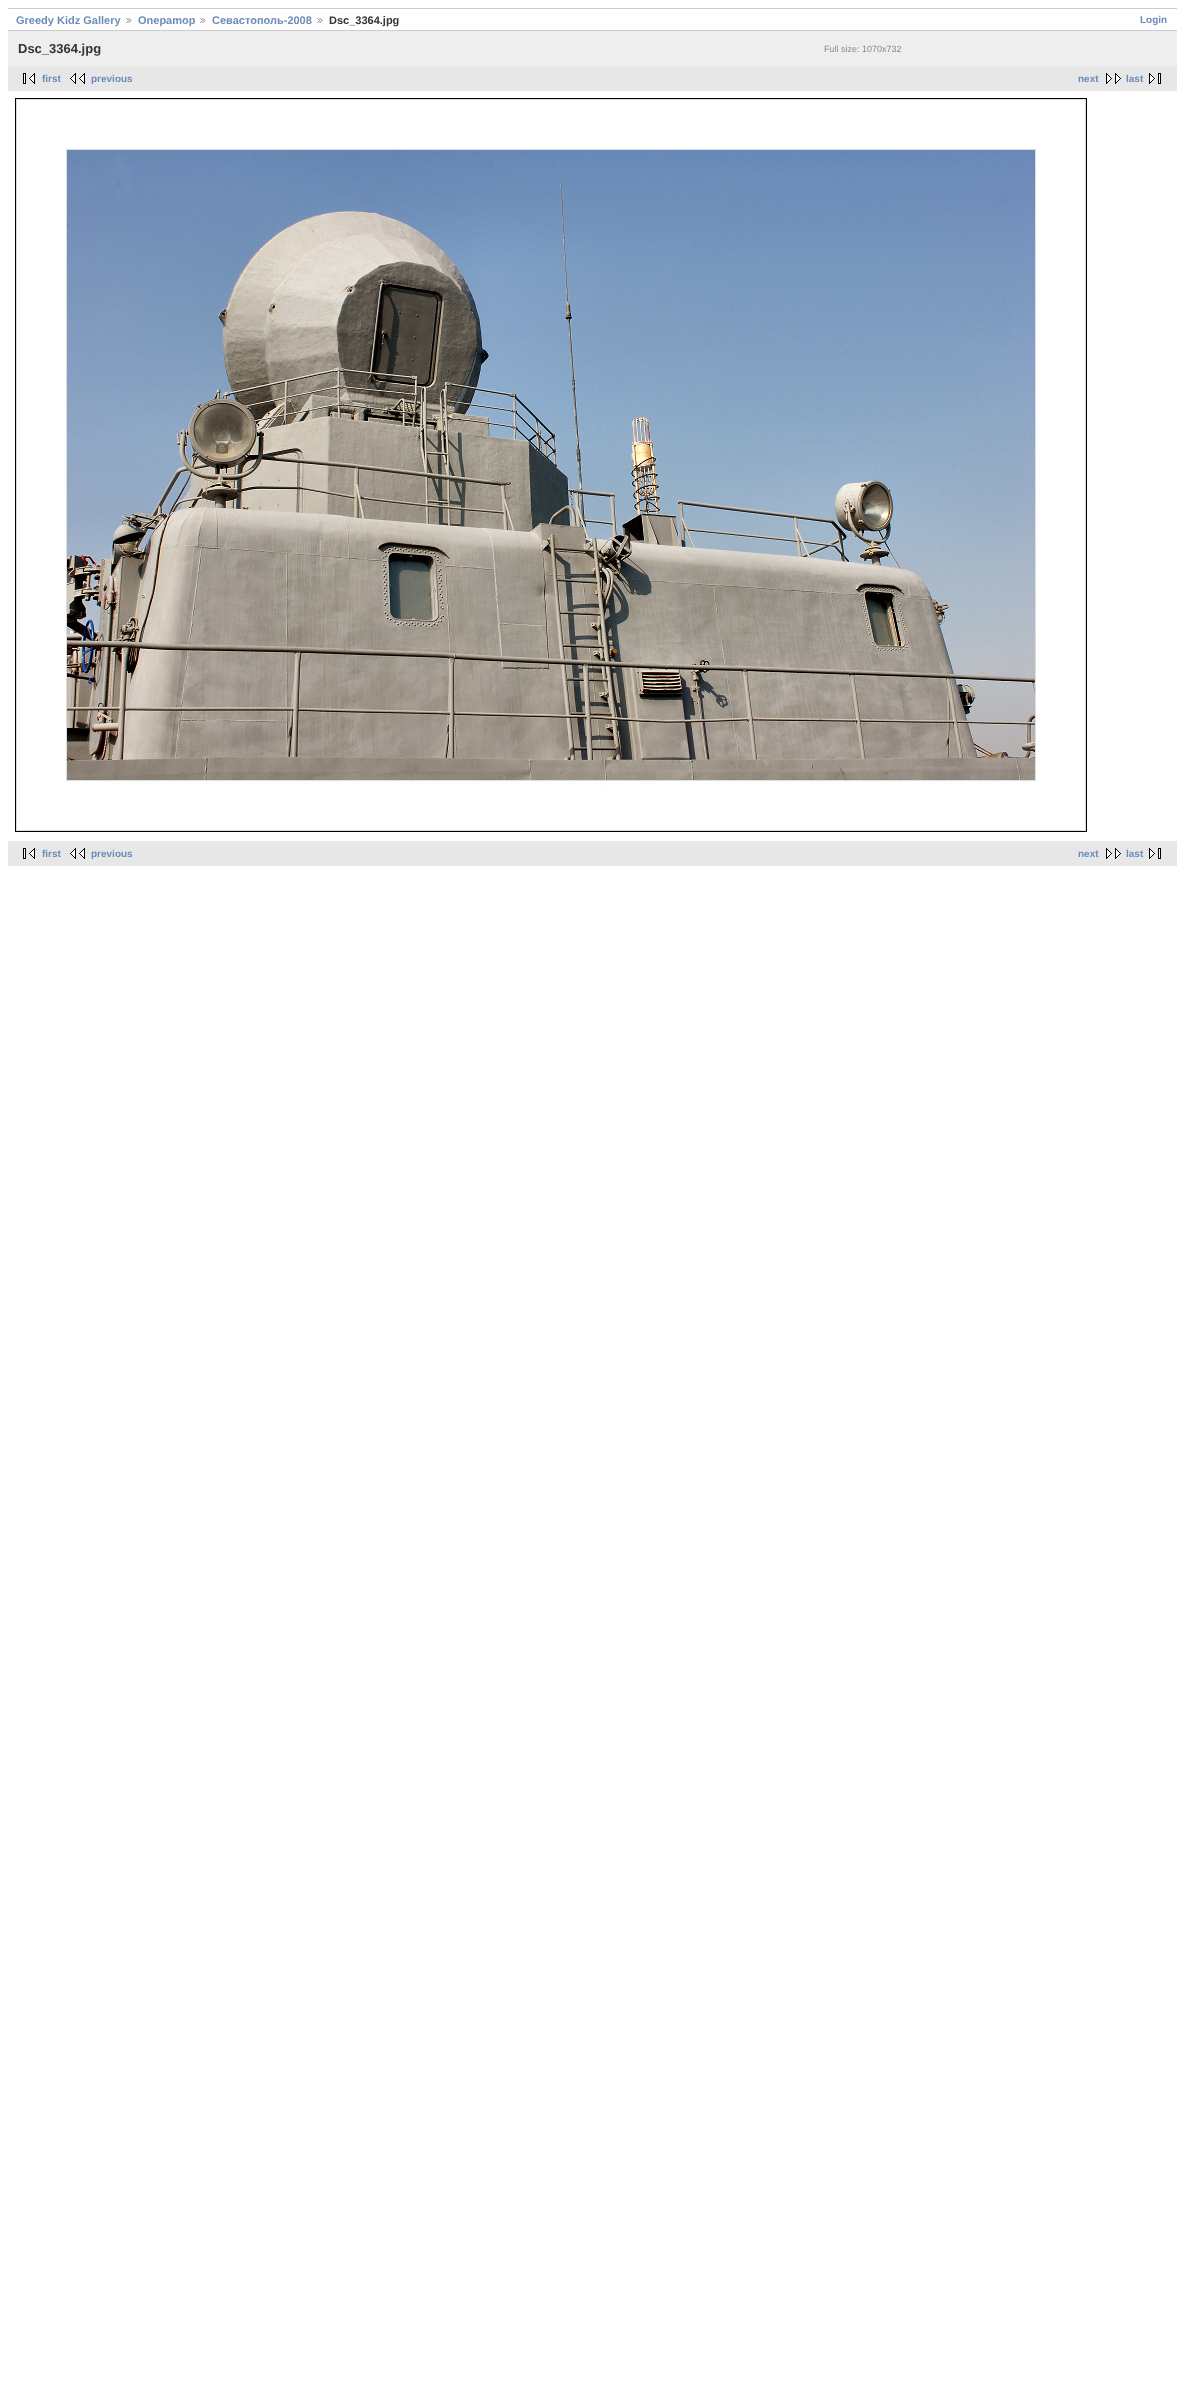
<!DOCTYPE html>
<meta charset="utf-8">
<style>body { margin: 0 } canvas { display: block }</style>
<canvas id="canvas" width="1185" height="2394"></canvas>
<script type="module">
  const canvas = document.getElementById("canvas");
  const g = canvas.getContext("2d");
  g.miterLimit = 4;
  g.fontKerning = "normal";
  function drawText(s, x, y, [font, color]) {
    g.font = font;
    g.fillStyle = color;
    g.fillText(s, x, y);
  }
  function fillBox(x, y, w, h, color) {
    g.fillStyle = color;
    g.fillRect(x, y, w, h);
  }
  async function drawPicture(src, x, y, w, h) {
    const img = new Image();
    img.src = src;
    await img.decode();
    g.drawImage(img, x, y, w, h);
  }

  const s1 = ["bold 11px Liberation Sans", "#6B8CB7"];
  const s2 = ["bold 11px Liberation Sans", "#333333"];
  const s3 = ["bold 10px Liberation Sans", "#6B8CB7"];
  const s4 = ["bold 13px Liberation Sans", "#333333"];
  const s5 = ["9px Liberation Sans", "#888888"];

  fillBox(0, 0, 1185, 2394, "#FFFFFF");
  fillBox(8, 8, 1169, 1, "#CCCCCC");
  fillBox(8, 30, 1169, 1, "#CCCCCC");
  drawText("Greedy Kidz Gallery", 16, 24, s1);
  await drawPicture("pic1.png", 126, 18, 6, 5);
  drawText("Onepamop", 138, 24, s1);
  await drawPicture("pic1.png", 200, 18, 6, 5);
  drawText("Севастополь-2008", 212, 24, s1);
  await drawPicture("pic1.png", 317, 18, 6, 5);
  drawText("Dsc_3364.jpg", 329, 24, s2);
  drawText("Login", 1140, 23, s3);
  fillBox(8, 31, 1169, 35, "#EEEEEE");
  drawText("Dsc_3364.jpg", 18, 53, s4);
  drawText("Full size: 1070x732", 824, 52, s5);
  fillBox(8, 66, 1169, 25, "#E7E7E7");
  await drawPicture("pic2.png", 23, 73, 12, 11);
  drawText("first", 42, 82, s3);
  await drawPicture("pic3.png", 70, 73, 15, 11);
  drawText("previous", 91, 82, s3);
  drawText("next", 1078, 82, s3);
  await drawPicture("pic4.png", 1106, 73, 15, 11);
  drawText("last", 1126, 82, s3);
  await drawPicture("pic5.png", 1149, 73, 12, 11);
  g.strokeStyle = "#000000";
  g.strokeRect(15.5, 98.5, 1071, 733);
  await drawPicture("pic6.png", 16, 99, 1070, 732);
  fillBox(8, 841, 1169, 25, "#E7E7E7");
  await drawPicture("pic2.png", 23, 848, 12, 11);
  drawText("first", 42, 857, s3);
  await drawPicture("pic3.png", 70, 848, 15, 11);
  drawText("previous", 91, 857, s3);
  drawText("next", 1078, 857, s3);
  await drawPicture("pic4.png", 1106, 848, 15, 11);
  drawText("last", 1126, 857, s3);
  await drawPicture("pic5.png", 1149, 848, 12, 11);
</script>
